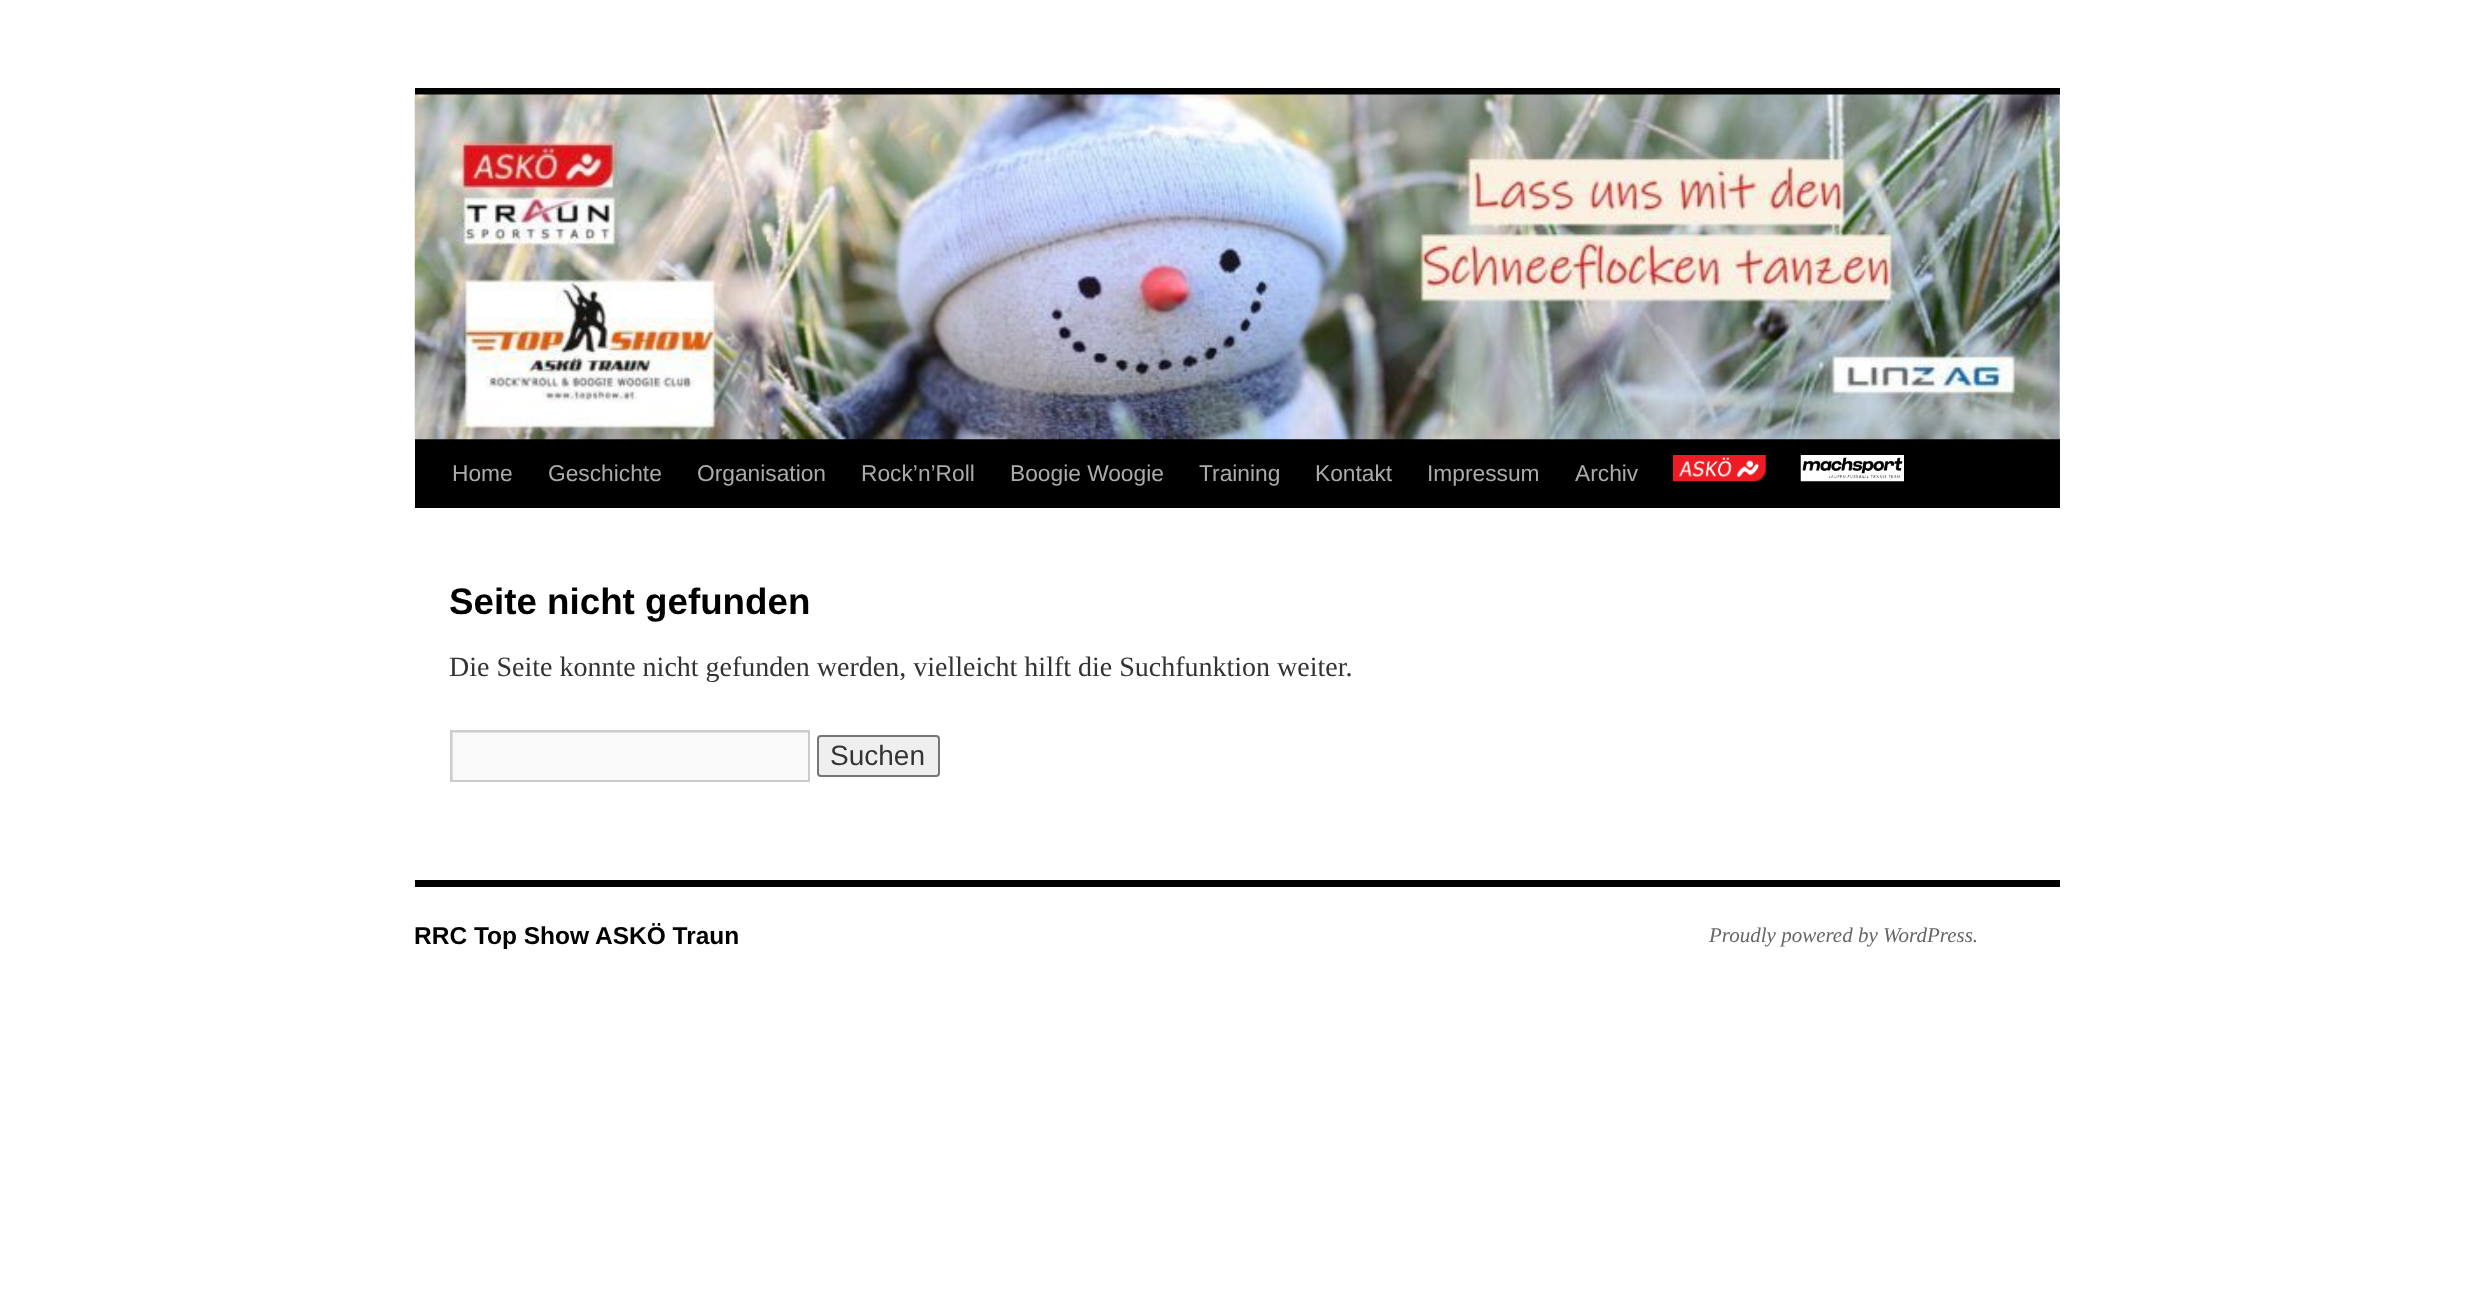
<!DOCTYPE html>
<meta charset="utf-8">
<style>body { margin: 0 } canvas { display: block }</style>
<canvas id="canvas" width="2472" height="1300"></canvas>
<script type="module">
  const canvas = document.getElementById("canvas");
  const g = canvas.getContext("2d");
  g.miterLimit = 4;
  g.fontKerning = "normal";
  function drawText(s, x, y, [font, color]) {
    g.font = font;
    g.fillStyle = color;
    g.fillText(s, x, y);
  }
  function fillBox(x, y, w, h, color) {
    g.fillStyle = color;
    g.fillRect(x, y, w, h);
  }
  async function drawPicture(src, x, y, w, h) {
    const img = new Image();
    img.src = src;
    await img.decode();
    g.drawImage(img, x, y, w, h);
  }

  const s1 = ["22.75px Liberation Sans", "#AAAAAA"];
  const s2 = ["bold 36.75px Liberation Sans", "#000000"];
  const s3 = ["28px Liberation Serif", "#333333"];
  const s4 = ["28px Liberation Sans", "#333333"];
  const s5 = ["bold 24.5px Liberation Sans", "#000000"];
  const s6 = ["italic 21px Liberation Serif", "#666666"];

  fillBox(0, 0, 2472, 1300, "#FFFFFF");
  fillBox(415, 88, 1645, 7, "#000000");
  fillBox(415, 439, 1645, 69, "#000000");
  await drawPicture("pic1.png", 414, 94, 1646, 346);
  drawText("Home", 452, 481, s1);
  drawText("Geschichte", 548, 481, s1);
  drawText("Organisation", 697, 481, s1);
  drawText("Rock’n’Roll", 861, 481, s1);
  drawText("Boogie Woogie", 1010, 481, s1);
  drawText("Training", 1199, 481, s1);
  drawText("Kontakt", 1315, 481, s1);
  drawText("Impressum", 1427, 481, s1);
  drawText("Archiv", 1575, 481, s1);
  await drawPicture("pic2.png", 1673, 455, 93, 27);
  await drawPicture("pic3.png", 1800, 455, 104, 27);
  drawText("Seite nicht gefunden", 449, 614, s2);
  drawText("Die Seite konnte nicht gefunden werden, vielleicht hilft die Suchfunktion weiter.", 449, 676, s3);
  fillBox(453, 733, 355, 47, "#F9F9F9");
  g.save();
  g.beginPath();
  g.rect(452, 732, 357, 49);
  g.clip();
  g.fillStyle = "#E0E0E0";
  g.beginPath();
  g.moveTo(278, 558);
  g.lineTo(982, 558);
  g.lineTo(982, 954);
  g.lineTo(278, 954);
  g.closePath();
  g.moveTo(453, 733);
  g.lineTo(810, 733);
  g.lineTo(810, 782);
  g.lineTo(453, 782);
  g.closePath();
  g.fill("evenodd");
  g.restore();
  g.strokeStyle = "#CCCCCC";
  g.lineWidth = 2;
  g.strokeRect(451, 731, 358, 50);
  g.fillStyle = "#EFEFEF";
  g.beginPath();
  g.roundRect(818, 736, 121, 40, 3);
  g.fill();
  g.strokeStyle = "#767676";
  g.stroke();
  drawText("Suchen", 830, 765, s4);
  fillBox(415, 880, 1645, 7, "#000000");
  drawText("RRC Top Show ASKÖ Traun", 414, 944, s5);
  drawText("Proudly powered by WordPress.", 1709, 942, s6);
</script>
